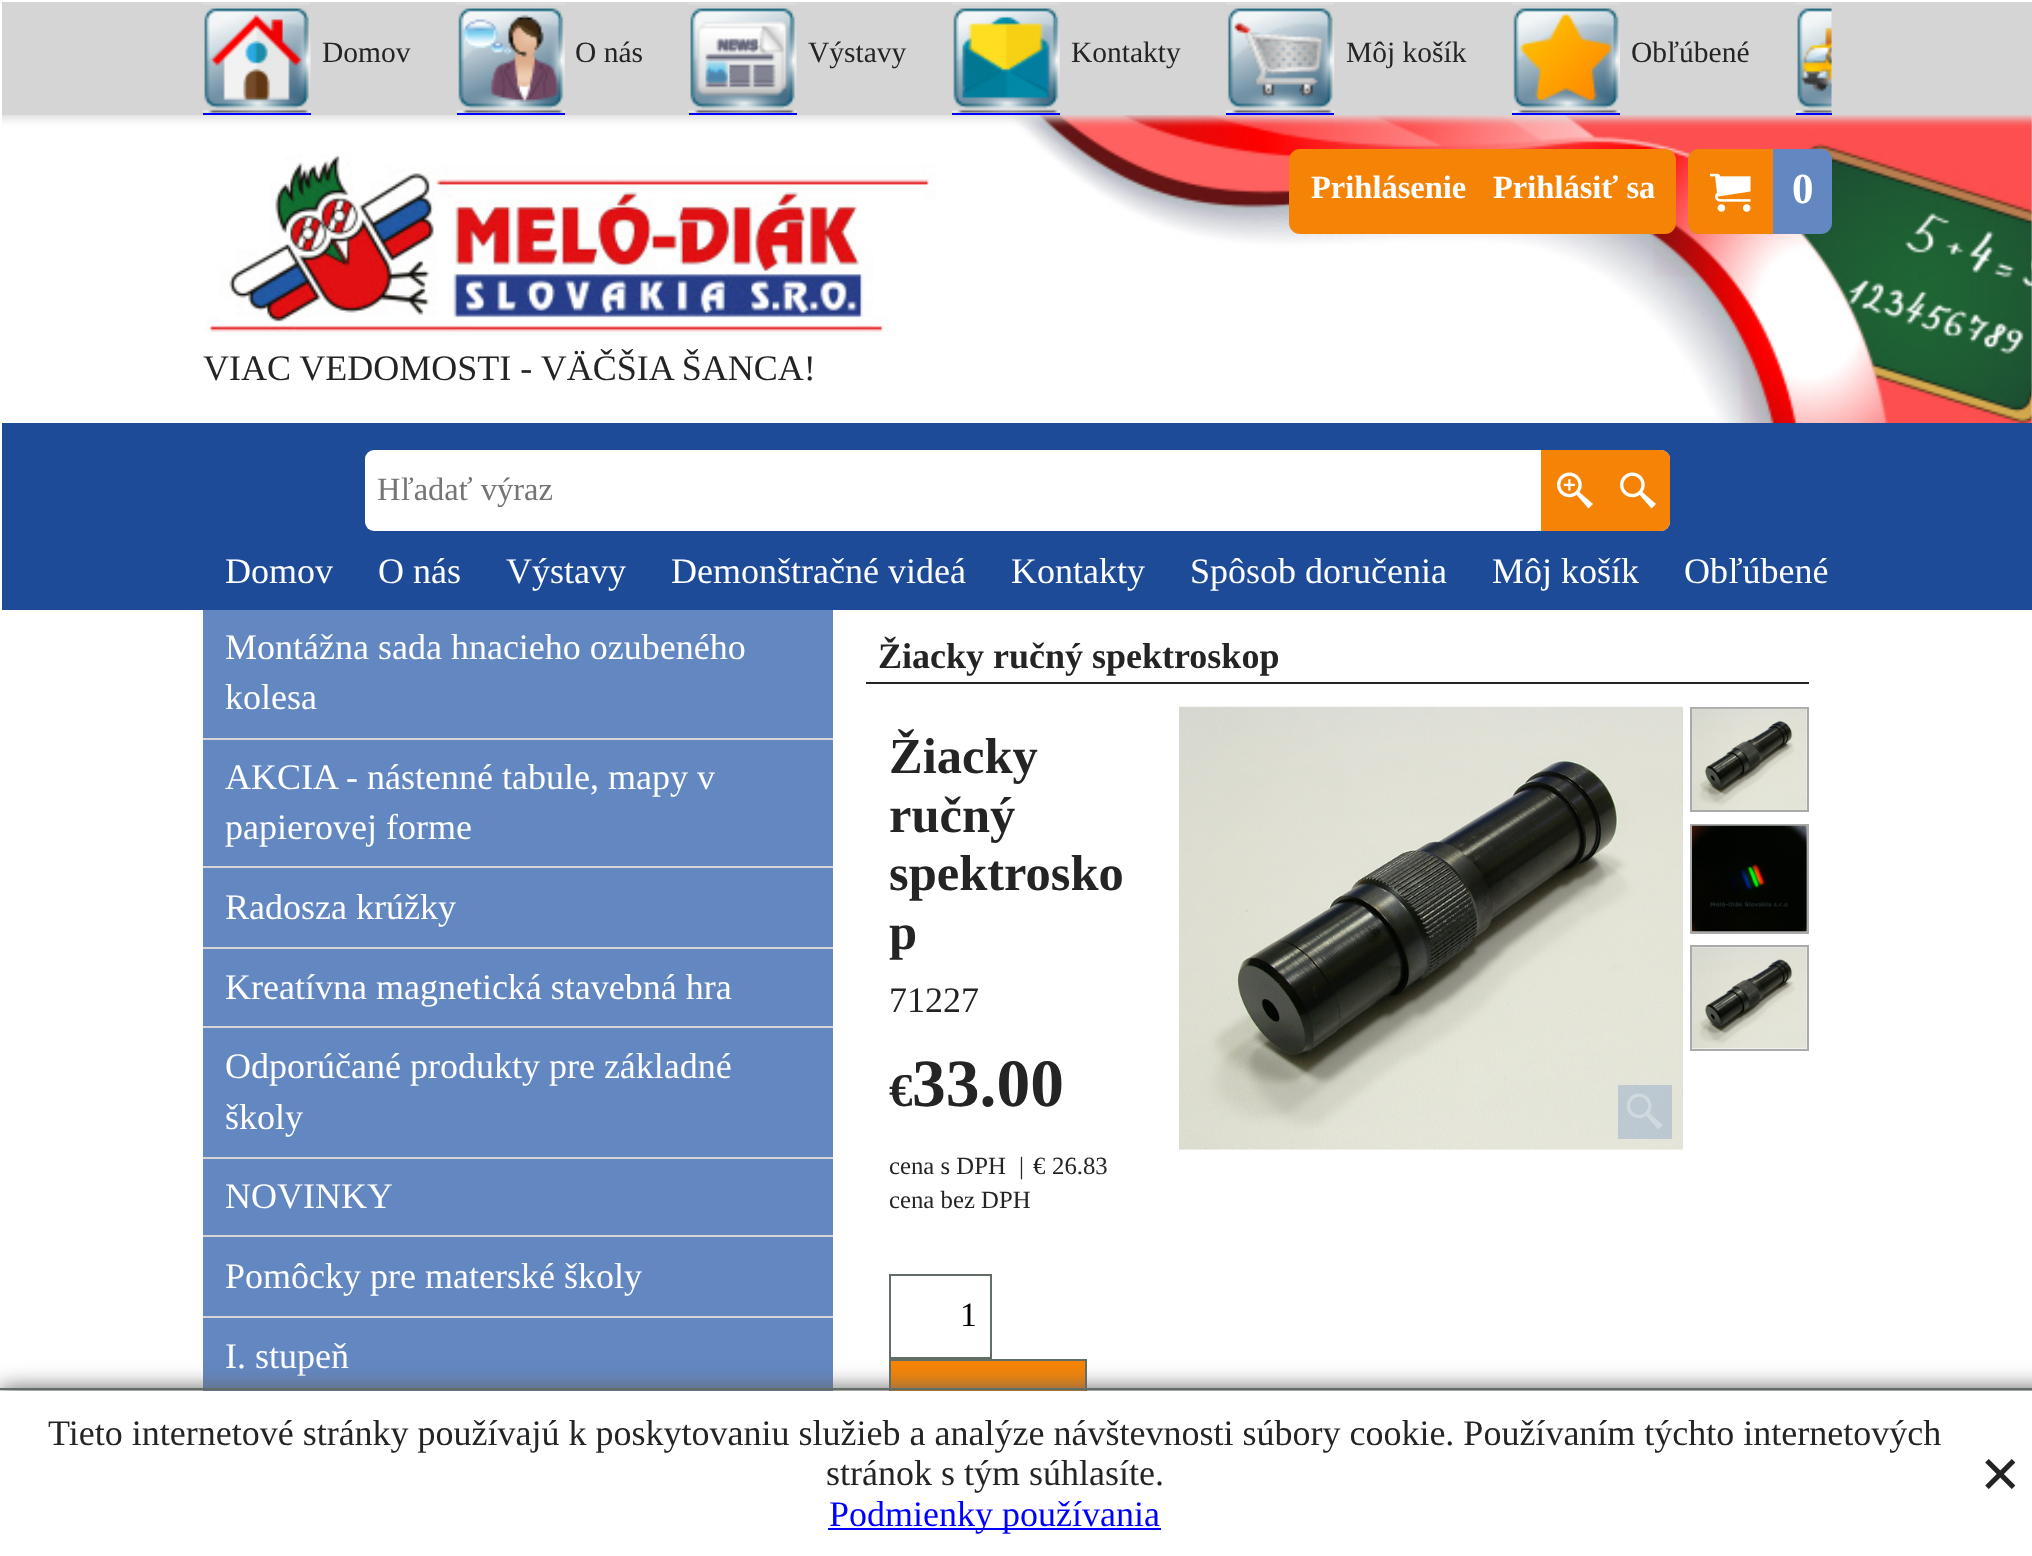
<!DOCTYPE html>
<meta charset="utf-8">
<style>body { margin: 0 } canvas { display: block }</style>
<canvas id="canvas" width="2032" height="1556"></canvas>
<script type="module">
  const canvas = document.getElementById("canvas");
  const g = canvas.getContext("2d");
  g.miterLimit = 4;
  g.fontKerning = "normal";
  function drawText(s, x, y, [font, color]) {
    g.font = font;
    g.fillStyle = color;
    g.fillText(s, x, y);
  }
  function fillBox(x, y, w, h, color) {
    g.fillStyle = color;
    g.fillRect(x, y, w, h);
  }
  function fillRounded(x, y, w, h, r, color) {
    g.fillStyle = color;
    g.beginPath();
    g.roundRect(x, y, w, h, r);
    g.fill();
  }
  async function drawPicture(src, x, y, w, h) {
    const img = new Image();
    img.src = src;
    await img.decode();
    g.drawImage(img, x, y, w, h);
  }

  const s1 = ["29.5px Liberation Serif", "#242424"];
  const s2 = ["bold 32.5px Liberation Serif", "#FFFFFF"];
  const s3 = ["bold 43px Liberation Serif", "#FFFFFF"];
  const s4 = ["36px Liberation Serif", "#242424"];
  const s5 = ["32.5px Liberation Serif", "#757575"];
  const s6 = ["36px Liberation Serif", "#FFFFFF"];
  const s7 = ["bold 36px Liberation Serif", "#242424"];
  const s8 = ["bold 50.5px Liberation Serif", "#242424"];
  const s9 = ["bold 47px Liberation Serif", "#242424"];
  const s10 = ["bold 67.5px Liberation Serif", "#242424"];
  const s11 = ["24.75px Liberation Serif", "#242424"];
  const s12 = ["34px Liberation Serif", "#000000"];
  const s13 = ["36px Liberation Serif", "#0000FF"];

  fillBox(0, 0, 2032, 1556, "#FFFFFF");
  await drawPicture("pic8.png", 1012, 115, 1020, 308);
  g.save();
  g.beginPath();
  g.rect(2, 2, 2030, 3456);
  g.clip();
  g.fillStyle = "#DEDEDE";
  g.filter = "blur(4.5px)";
  g.beginPath();
  g.rect(-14, 7, 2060, 112);
  g.fill();
  g.filter = "none";
  g.restore();
  fillBox(2, 2, 2030, 113, "#D5D5D5");
  fillBox(203, 113, 108, 2, "#0000FF");
  await drawPicture("pic1.png", 202, 2, 109, 111);
  drawText("Domov", 322, 62, s1);
  fillBox(457, 113, 108, 2, "#0000FF");
  await drawPicture("pic2.png", 456, 2, 109, 111);
  drawText("O nás", 575, 62, s1);
  fillBox(689, 113, 108, 2, "#0000FF");
  await drawPicture("pic3.png", 688, 2, 109, 111);
  drawText("Výstavy", 808, 62, s1);
  fillBox(952, 113, 108, 2, "#0000FF");
  await drawPicture("pic4.png", 951, 2, 109, 111);
  drawText("Kontakty", 1071, 62, s1);
  fillBox(1226, 113, 108, 2, "#0000FF");
  await drawPicture("pic5.png", 1226, 2, 109, 111);
  drawText("Môj košík", 1346, 62, s1);
  fillBox(1512, 113, 108, 2, "#0000FF");
  await drawPicture("pic6.png", 1512, 2, 108, 111);
  drawText("Obľúbené", 1631, 62, s1);
  fillBox(1796, 113, 36, 2, "#0000FF");
  await drawPicture("pic7.png", 1795, 2, 37, 111);
  fillRounded(1289, 149, 387, 85, 11, "#F58406");
  drawText("Prihlásenie", 1311, 198, s2);
  drawText("Prihlásiť sa", 1493, 198, s2);
  fillRounded(1688, 149, 144, 85, 11, "#6387C1");
  g.fillStyle = "#F58406";
  g.beginPath();
  g.roundRect(1689, 150, 83, 83, [10, 0, 0, 10]);
  g.fill();
  g.strokeStyle = "#F58406";
  g.lineWidth = 2;
  g.stroke();
  await drawPicture("pic9.png", 1710, 173, 41, 39);
  drawText("0", 1792, 203, s3);
  await drawPicture("pic10.png", 205, 154, 731, 179);
  drawText("VIAC VEDOMOSTI - VÄČŠIA ŠANCA!", 203, 380, s4);
  fillBox(2, 423, 2030, 187, "#1D4B98");
  fillRounded(365, 450, 1305, 81, 9, "#FFFFFF");
  drawText("Hľadať výraz", 377, 500, s5);
  fillBox(1541, 450, 63, 81, "#F58406");
  await drawPicture("pic11.png", 1557, 472, 36, 37);
  g.beginPath();
  g.roundRect(1604, 450, 66, 81, [0, 9, 9, 0]);
  g.fill();
  await drawPicture("pic12.png", 1620, 472, 36, 37);
  drawText("Domov", 225, 583, s6);
  drawText("O nás", 378, 583, s6);
  drawText("Výstavy", 506, 583, s6);
  drawText("Demonštračné videá", 671, 583, s6);
  drawText("Kontakty", 1011, 583, s6);
  drawText("Spôsob doručenia", 1190, 583, s6);
  drawText("Môj košík", 1492, 583, s6);
  drawText("Obľúbené", 1684, 583, s6);
  fillBox(203, 610, 630, 781, "#6387C1");
  fillBox(203, 738, 630, 2, "#D5D5D5");
  drawText("Montážna sada hnacieho ozubeného", 225, 659, s6);
  drawText("kolesa", 225, 709, s6);
  fillBox(203, 866, 630, 2, "#D5D5D5");
  drawText("AKCIA - nástenné tabule, mapy v", 225, 789, s6);
  drawText("papierovej forme", 225, 839, s6);
  fillBox(203, 947, 630, 2, "#D5D5D5");
  drawText("Radosza krúžky", 225, 919, s6);
  fillBox(203, 1026, 630, 2, "#D5D5D5");
  drawText("Kreatívna magnetická stavebná hra", 225, 999, s6);
  fillBox(203, 1157, 630, 2, "#D5D5D5");
  drawText("Odporúčané produkty pre základné", 225, 1078, s6);
  drawText("školy", 225, 1129, s6);
  fillBox(203, 1235, 630, 2, "#D5D5D5");
  drawText("NOVINKY", 225, 1208, s6);
  fillBox(203, 1316, 630, 2, "#D5D5D5");
  drawText("Pomôcky pre materské školy", 225, 1288, s6);
  drawText("I. stupeň", 225, 1368, s6);
  fillBox(866, 682, 943, 2, "#242424");
  drawText("Žiacky ručný spektroskop", 878, 668, s7);
  drawText("Žiacky", 889, 773, s8);
  drawText("ručný", 889, 832, s8);
  drawText("spektrosko", 889, 890, s8);
  drawText("p", 889, 949, s8);
  drawText("71227", 889, 1012, s4);
  drawText("€", 889, 1106, s9);
  drawText("33.00", 912, 1106, s10);
  drawText("cena s DPH", 889, 1174, s11);
  drawText("|", 1019, 1174, s11);
  drawText("€", 1033, 1174, s11);
  drawText("26.83", 1052, 1174, s11);
  drawText("cena bez DPH", 889, 1208, s11);
  g.strokeStyle = "#626D66";
  g.strokeRect(890, 1275, 101, 83);
  drawText("1", 960, 1326, s12);
  fillBox(891, 1361, 194, 30, "#F58406");
  g.strokeRect(890, 1360, 196, 84);
  await drawPicture("pic13.png", 1179, 706, 504, 444);
  fillBox(1618, 1085, 54, 54, "rgba(99, 135, 193, 0.3)");
  await drawPicture("pic14.png", 1626, 1093, 37, 37);
  g.strokeStyle = "#AAAAAA";
  g.strokeRect(1691, 708, 117, 103);
  await drawPicture("pic15.png", 1692, 708, 115, 102);
  g.strokeRect(1691, 825, 117, 108);
  await drawPicture("pic16.png", 1692, 825, 115, 107);
  g.strokeRect(1691, 946, 117, 104);
  await drawPicture("pic17.png", 1692, 947, 115, 102);
  g.fillStyle = "#666666";
  g.filter = "blur(11px)";
  g.beginPath();
  g.rect(0, 1388, 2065, 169);
  g.fill();
  g.filter = "none";
  fillBox(0, 1391, 2032, 165, "#FFFFFF");
  fillBox(0, 1388, 2032, 2, "#626D66");
  drawText("Tieto internetové stránky používajú k poskytovaniu služieb a analýze návštevnosti súbory cookie. Používaním týchto internetových", 48, 1445, s4);
  drawText("stránok s tým súhlasíte.", 826, 1485, s4);
  await drawPicture("pic18.png", 1985, 1459, 31, 30);
  fillBox(828, 1528, 333, 2, "#0000FF");
  drawText("Podmienky používania", 829, 1526, s13);
</script>
